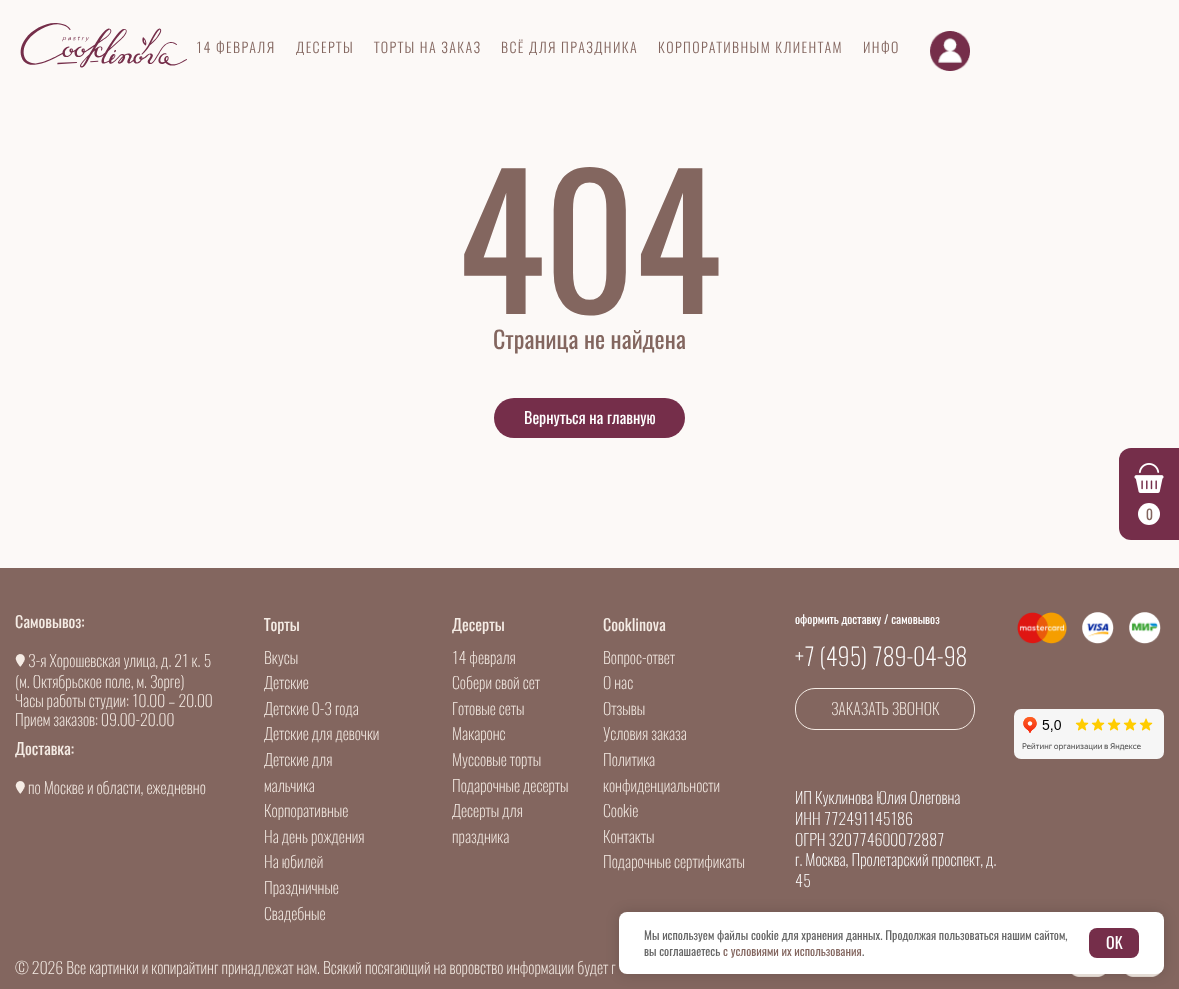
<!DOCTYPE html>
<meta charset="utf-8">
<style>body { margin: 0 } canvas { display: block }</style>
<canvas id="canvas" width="1179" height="989"></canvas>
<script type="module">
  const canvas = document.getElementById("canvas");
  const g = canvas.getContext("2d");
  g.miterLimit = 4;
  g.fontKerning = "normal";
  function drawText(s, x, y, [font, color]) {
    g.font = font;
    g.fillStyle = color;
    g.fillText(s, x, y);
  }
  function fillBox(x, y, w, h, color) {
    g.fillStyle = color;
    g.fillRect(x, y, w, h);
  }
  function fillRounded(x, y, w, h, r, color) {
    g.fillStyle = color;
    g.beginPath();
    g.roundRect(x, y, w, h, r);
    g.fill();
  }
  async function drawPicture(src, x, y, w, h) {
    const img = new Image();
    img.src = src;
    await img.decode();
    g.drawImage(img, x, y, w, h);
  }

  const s1 = ["300 14px Oswald", "#83665F"];
  const s2 = ["180px Oswald", "#83665F"];
  const s3 = ["24px Oswald", "#83665F"];
  const s4 = ["16px Oswald", "#FFFFFF"];
  const s5 = ["14px Oswald", "#83665F"];
  const s6 = ["16px Oswald", "#F5ECE5"];
  const s7 = ["200 16px Oswald", "#F5ECE5"];
  const s8 = ["12px Oswald", "#FFFFFF"];
  const s9 = ["200 24px Oswald", "#FFFFFF"];
  const s10 = ["200 16px Oswald", "#FFFFFF"];
  const s11 = ["12px Oswald", "#666666"];
  const s12 = ["12px Oswald", "#83665F"];

  fillBox(0, 0, 1179, 989, "#FCF9F7");
  await drawPicture("pic1.png", 20, 23, 167, 45);
  g.letterSpacing = "1.4px";
  drawText("14 ФЕВРАЛЯ", 196, 53, s1);
  drawText("ДЕСЕРТЫ", 296, 53, s1);
  drawText("ТОРТЫ НА ЗАКАЗ", 374, 53, s1);
  drawText("ВСЁ ДЛЯ ПРАЗДНИКА", 501, 53, s1);
  drawText("КОРПОРАТИВНЫМ КЛИЕНТАМ", 658, 53, s1);
  drawText("ИНФО", 863, 53, s1);
  await drawPicture("pic2.png", 930, 31, 40, 40);
  g.letterSpacing = "0px";
  drawText("404", 457, 314, s2);
  drawText("Страница не найдена", 493, 349, s3);
  fillRounded(494, 398, 191, 40, 20, "#752E4A");
  drawText("Вернуться на главную", 524, 424, s4);
  g.fillStyle = "#752E4A";
  g.beginPath();
  g.roundRect(1119, 448, 60, 92, [12, 0, 0, 12]);
  g.fill();
  await drawPicture("pic3.png", 1134, 463, 30, 30);
  g.fillStyle = "#FFFFFF";
  g.beginPath();
  g.arc(1149, 514, 11, 0, Math.PI * 2);
  g.fill();
  drawText("0", 1146, 520, s5);
  fillBox(0, 568, 1179, 421, "#83665F");
  drawText("Самовывоз:", 15, 628, s6);
  await drawPicture("pic4.png", 15, 654, 10, 13);
  drawText("3-я Хорошевская улица, д. 21 к. 5", 28, 667, s7);
  drawText("(м. Октябрьское поле, м. Зорге)", 15, 688, s7);
  drawText("Часы работы студии: 10.00 – 20.00", 15, 707, s7);
  drawText("Прием заказов: 09.00-20.00", 15, 726, s7);
  drawText("Доставка:", 15, 755, s6);
  await drawPicture("pic4.png", 15, 781, 10, 13);
  drawText("по Москве и области, ежедневно", 28, 794, s7);
  drawText("Торты", 264, 631, s6);
  drawText("Вкусы", 264, 664, s7);
  drawText("Детские", 264, 689, s7);
  drawText("Детские 0-3 года", 264, 715, s7);
  drawText("Детские для девочки", 264, 740, s7);
  drawText("Детские для", 264, 766, s7);
  drawText("мальчика", 264, 792, s7);
  drawText("Корпоративные", 264, 817, s7);
  drawText("На день рождения", 264, 843, s7);
  drawText("На юбилей", 264, 868, s7);
  drawText("Праздничные", 264, 894, s7);
  drawText("Свадебные", 264, 920, s7);
  drawText("Десерты", 452, 631, s6);
  drawText("14 февраля", 452, 664, s7);
  drawText("Собери свой сет", 452, 689, s7);
  drawText("Готовые сеты", 452, 715, s7);
  drawText("Макаронс", 452, 740, s7);
  drawText("Муссовые торты", 452, 766, s7);
  drawText("Подарочные десерты", 452, 792, s7);
  drawText("Десерты для", 452, 817, s7);
  drawText("праздника", 452, 843, s7);
  drawText("Cooklinova", 603, 631, s6);
  drawText("Вопрос-ответ", 603, 664, s7);
  drawText("О нас", 603, 689, s7);
  drawText("Отзывы", 603, 715, s7);
  drawText("Условия заказа", 603, 740, s7);
  drawText("Политика", 603, 766, s7);
  drawText("конфиденциальности", 603, 792, s7);
  drawText("Cookie", 603, 817, s7);
  drawText("Контакты", 603, 843, s7);
  drawText("Подарочные сертификаты", 603, 868, s7);
  drawText("© 2026 Все картинки и копирайтинг принадлежат нам. Всякий посягающий на воровство информации будет г", 15, 974, s7);
  drawText("оформить доставку / самовывоз", 795, 624, s8);
  drawText("+7 (495) 789-04-98", 795, 666, s9);
  g.beginPath();
  g.roundRect(795.5, 688.5, 179, 41, 19.5);
  g.strokeStyle = "#F5ECE5";
  g.stroke();
  drawText("ЗАКАЗАТЬ ЗВОНОК", 831, 715, s7);
  drawText("ИП Куклинова Юлия Олеговна", 795, 804, s10);
  drawText("ИНН 772491145186", 795, 825, s10);
  drawText("ОГРН 320774600072887", 795, 846, s10);
  drawText("г. Москва, Пролетарский проспект, д.", 795, 866, s10);
  drawText("45", 795, 887, s10);
  await drawPicture("pic5.png", 1017, 612, 50, 32);
  await drawPicture("pic6.png", 1082, 612, 32, 32);
  await drawPicture("pic7.png", 1129, 612, 32, 32);
  await drawPicture("pic8.png", 1014, 709, 150, 50);
  await drawPicture("pic9.png", 1071, 974, 34, 3);
  await drawPicture("pic10.png", 1125, 971, 37, 6);
  g.fillStyle = "rgba(0, 0, 0, 0.15)";
  g.filter = "blur(6.5px)";
  g.beginPath();
  g.roundRect(619, 912, 545, 62, 8);
  g.fill();
  g.filter = "none";
  fillRounded(619, 912, 545, 62, 8, "#FFFFFF");
  drawText("Мы используем файлы cookie для хранения данных. Продолжая пользоваться нашим сайтом,", 644, 940, s11);
  drawText("вы соглашаетесь", 644, 956, s11);
  drawText("с условиями их использования", 723, 956, s12);
  drawText(".", 862, 956, s11);
  fillRounded(1089, 928, 50, 30, 8, "#752E4A");
  drawText("OK", 1106, 949, s4);
</script>
